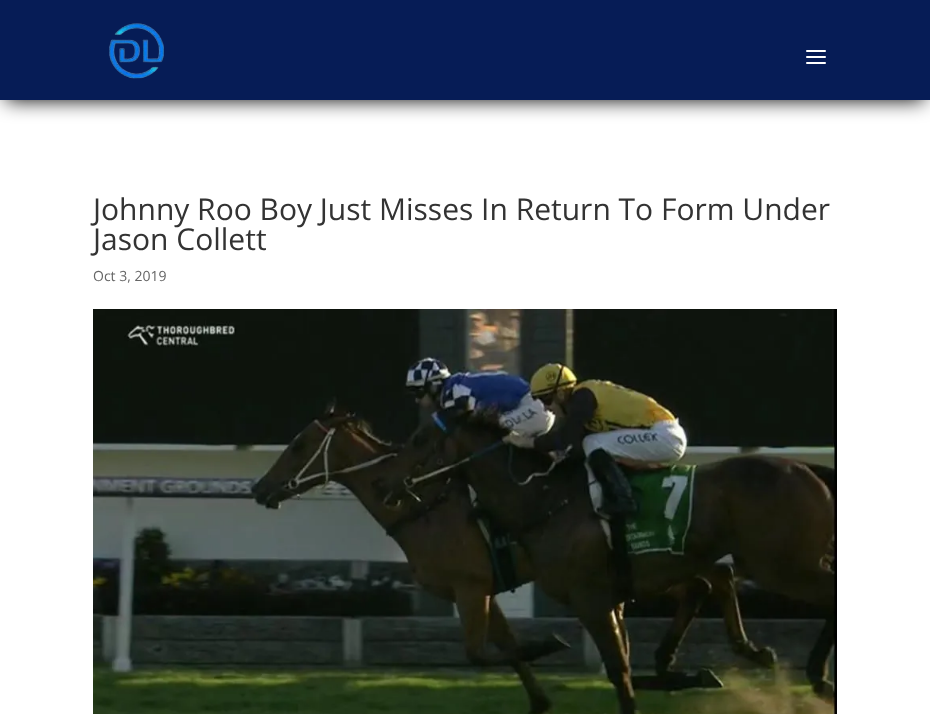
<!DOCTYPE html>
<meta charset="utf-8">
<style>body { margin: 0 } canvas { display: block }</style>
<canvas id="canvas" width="930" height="714"></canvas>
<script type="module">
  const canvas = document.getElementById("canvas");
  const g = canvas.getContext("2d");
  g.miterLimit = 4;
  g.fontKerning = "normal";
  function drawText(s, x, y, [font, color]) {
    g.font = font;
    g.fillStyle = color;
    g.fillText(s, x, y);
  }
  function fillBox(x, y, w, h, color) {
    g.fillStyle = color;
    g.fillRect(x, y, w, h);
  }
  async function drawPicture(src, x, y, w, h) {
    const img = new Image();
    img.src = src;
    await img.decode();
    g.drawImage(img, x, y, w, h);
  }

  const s1 = ["30px Open Sans", "#333333"];
  const s2 = ["14px Open Sans", "#666666"];

  fillBox(0, 0, 930, 714, "#FFFFFF");
  g.fillStyle = "#000000";
  g.filter = "blur(10px)";
  g.beginPath();
  g.rect(6, 12, 918, 88);
  g.fill();
  g.filter = "none";
  fillBox(0, 0, 930, 100, "#061C56");
  await drawPicture("pic1.png", 109, 23, 55, 56);
  await drawPicture("pic2.png", 806, 50, 20, 14);
  drawText("Johnny Roo Boy Just Misses In Return To Form Under", 93, 220, s1);
  drawText("Jason Collett", 93, 250, s1);
  drawText("Oct 3, 2019", 93, 281, s2);
  await drawPicture("pic3.png", 93, 309, 744, 405);
</script>
